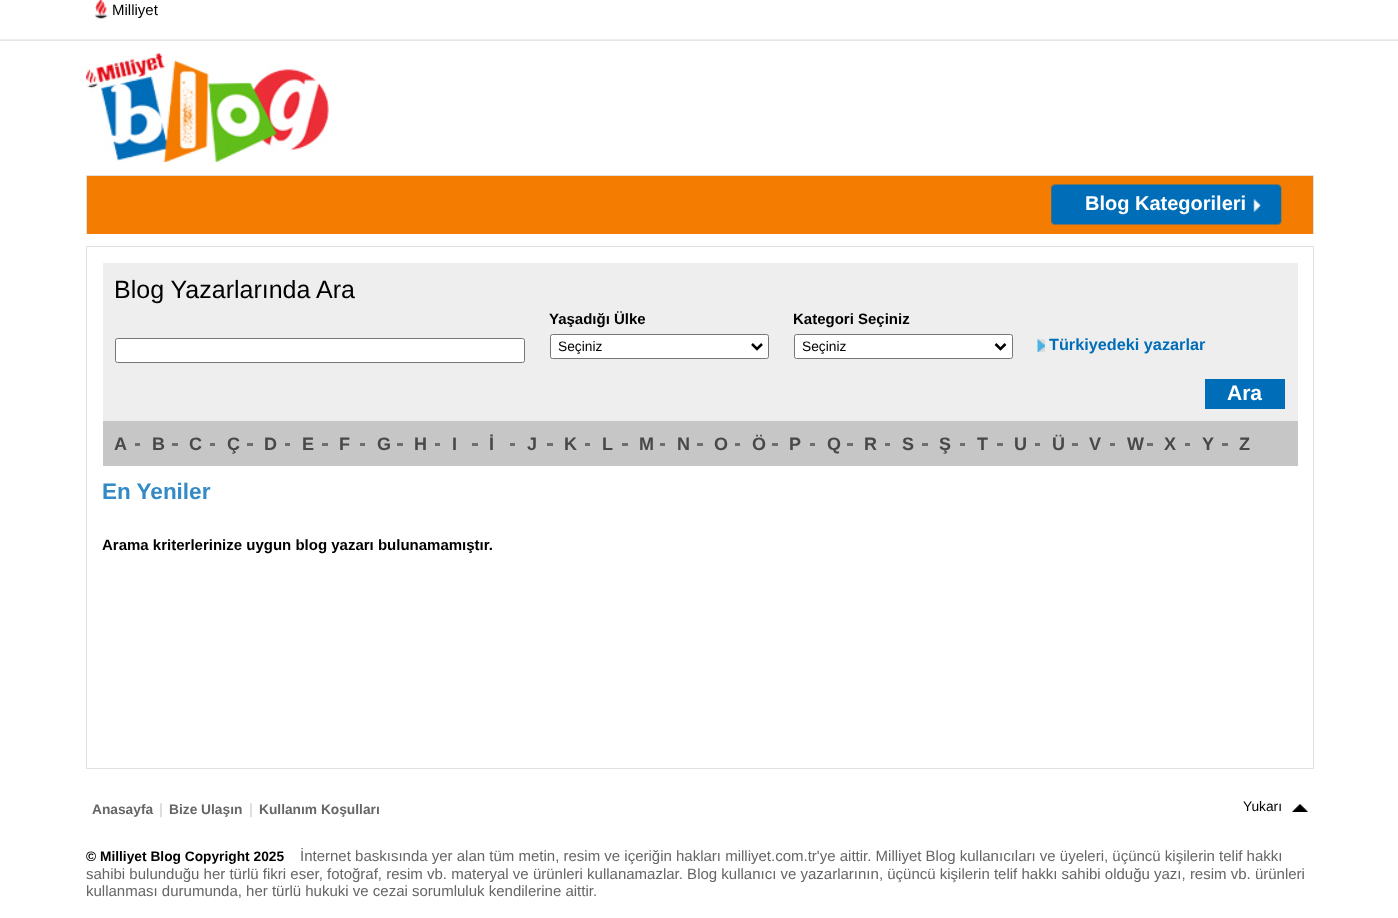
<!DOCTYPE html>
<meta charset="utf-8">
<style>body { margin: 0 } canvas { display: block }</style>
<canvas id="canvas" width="1398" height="918"></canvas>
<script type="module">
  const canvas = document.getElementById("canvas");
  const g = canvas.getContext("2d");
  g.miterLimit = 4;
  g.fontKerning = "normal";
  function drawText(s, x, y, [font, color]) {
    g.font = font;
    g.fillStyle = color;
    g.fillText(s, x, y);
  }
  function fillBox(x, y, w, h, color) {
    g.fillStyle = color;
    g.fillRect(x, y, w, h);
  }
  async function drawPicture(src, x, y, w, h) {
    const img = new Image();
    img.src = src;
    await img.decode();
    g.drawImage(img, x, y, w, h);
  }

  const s1 = ["15px Liberation Sans", "#000000"];
  const s2 = ["bold 20px Liberation Sans", "#FFFFFF"];
  const s3 = ["25px Liberation Sans", "#000000"];
  const s4 = ["bold 15px Liberation Sans", "#000000"];
  const s5 = ["13.75px Liberation Sans", "#000000"];
  const s6 = ["bold 16.25px Liberation Sans", "#006DB8"];
  const s7 = ["bold 21px Liberation Sans", "#FFFFFF"];
  const s8 = ["bold 18px Liberation Sans", "#484848"];
  const s9 = ["bold 22.5px Liberation Sans", "#338AC6"];
  const s10 = ["bold 13.75px Liberation Sans", "#666666"];
  const s11 = ["15px Liberation Sans", "#CCCCCC"];
  const s12 = ["bold 13.75px Liberation Sans", "#000000"];
  const s13 = ["15px Liberation Sans", "#666666"];

  fillBox(0, 0, 1398, 918, "#FFFFFF");
  await drawPicture("pic1.png", 0, 39, 1398, 2);
  await drawPicture("pic2.png", 95, 0, 13, 19);
  drawText("Milliyet", 112, 15, s1);
  await drawPicture("pic3.png", 86, 53, 243, 109);
  fillBox(87, 176, 1226, 58, "#F47C00");
  fillBox(86, 175, 1228, 1, "#E0E0E0");
  fillBox(1313, 175, 1, 59, "#E0E0E0");
  fillBox(86, 175, 1, 59, "#E0E0E0");
  await drawPicture("pic4.png", 1051, 184, 231, 41);
  drawText("Blog Kategorileri", 1085, 210, s2);
  g.strokeStyle = "#E0E0E0";
  g.strokeRect(86.5, 246.5, 1227, 522);
  fillBox(103, 421, 1195, 45, "#C6C6C6");
  fillBox(103, 263, 1195, 158, "#EEEEEE");
  drawText("Blog Yazarlarında Ara", 114, 298, s3);
  g.fillStyle = "#FFFFFF";
  g.beginPath();
  g.roundRect(115.5, 338.5, 409, 24, 2);
  g.fill();
  g.strokeStyle = "#767676";
  g.stroke();
  drawText("Yaşadığı Ülke", 549, 324, s4);
  g.fillStyle = "#FFFFFF";
  g.beginPath();
  g.roundRect(550.5, 334.5, 218, 24, 2);
  g.fill();
  g.stroke();
  g.beginPath();
  g.moveTo(752, 344);
  g.lineTo(757, 349);
  g.lineTo(762, 344);
  g.strokeStyle = "#000000";
  g.lineWidth = 2.5;
  g.stroke();
  drawText("Seçiniz", 558, 351, s5);
  drawText("Kategori Seçiniz", 793, 324, s4);
  g.fillStyle = "#FFFFFF";
  g.beginPath();
  g.roundRect(794.5, 334.5, 218, 24, 2);
  g.fill();
  g.strokeStyle = "#767676";
  g.lineWidth = 1;
  g.stroke();
  g.beginPath();
  g.moveTo(995.5, 344);
  g.lineTo(1000.5, 349);
  g.lineTo(1005.5, 344);
  g.strokeStyle = "#000000";
  g.lineWidth = 2.5;
  g.stroke();
  drawText("Seçiniz", 802, 351, s5);
  await drawPicture("pic5.png", 1037, 339, 8, 13);
  drawText("Türkiyedeki yazarlar", 1049, 350, s6);
  fillBox(1205, 379, 80, 30, "#006DB8");
  drawText("Ara", 1227, 400, s7);
  fillBox(135, 443, 5, 3, "#6F6F6F");
  drawText("A", 114, 450, s8);
  fillBox(172, 443, 6, 3, "#6F6F6F");
  drawText("B", 152, 450, s8);
  fillBox(210, 443, 5, 3, "#6F6F6F");
  drawText("C", 189, 450, s8);
  fillBox(247, 443, 6, 3, "#6F6F6F");
  drawText("Ç", 227, 450, s8);
  fillBox(285, 443, 5, 3, "#6F6F6F");
  drawText("D", 264, 450, s8);
  fillBox(322, 443, 6, 3, "#6F6F6F");
  drawText("E", 302, 450, s8);
  fillBox(360, 443, 5, 3, "#6F6F6F");
  drawText("F", 339, 450, s8);
  fillBox(397, 443, 6, 3, "#6F6F6F");
  drawText("G", 377, 450, s8);
  fillBox(435, 443, 5, 3, "#6F6F6F");
  drawText("H", 414, 450, s8);
  fillBox(472, 443, 6, 3, "#6F6F6F");
  drawText("I", 452, 450, s8);
  fillBox(510, 443, 5, 3, "#6F6F6F");
  drawText("İ", 489, 450, s8);
  fillBox(547, 443, 6, 3, "#6F6F6F");
  drawText("J", 527, 450, s8);
  fillBox(585, 443, 5, 3, "#6F6F6F");
  drawText("K", 564, 450, s8);
  fillBox(622, 443, 6, 3, "#6F6F6F");
  drawText("L", 602, 450, s8);
  fillBox(660, 443, 5, 3, "#6F6F6F");
  drawText("M", 639, 450, s8);
  fillBox(697, 443, 6, 3, "#6F6F6F");
  drawText("N", 677, 450, s8);
  fillBox(735, 443, 5, 3, "#6F6F6F");
  drawText("O", 714, 450, s8);
  fillBox(772, 443, 6, 3, "#6F6F6F");
  drawText("Ö", 752, 450, s8);
  fillBox(810, 443, 5, 3, "#6F6F6F");
  drawText("P", 789, 450, s8);
  fillBox(847, 443, 6, 3, "#6F6F6F");
  drawText("Q", 827, 450, s8);
  fillBox(885, 443, 5, 3, "#6F6F6F");
  drawText("R", 864, 450, s8);
  fillBox(922, 443, 6, 3, "#6F6F6F");
  drawText("S", 902, 450, s8);
  fillBox(960, 443, 5, 3, "#6F6F6F");
  drawText("Ş", 939, 450, s8);
  fillBox(997, 443, 6, 3, "#6F6F6F");
  drawText("T", 977, 450, s8);
  fillBox(1035, 443, 5, 3, "#6F6F6F");
  drawText("U", 1014, 450, s8);
  fillBox(1072, 443, 6, 3, "#6F6F6F");
  drawText("Ü", 1052, 450, s8);
  fillBox(1110, 443, 5, 3, "#6F6F6F");
  drawText("V", 1089, 450, s8);
  fillBox(1147, 443, 6, 3, "#6F6F6F");
  drawText("W", 1127, 450, s8);
  fillBox(1185, 443, 5, 3, "#6F6F6F");
  drawText("X", 1164, 450, s8);
  fillBox(1222, 443, 6, 3, "#6F6F6F");
  drawText("Y", 1202, 450, s8);
  drawText("Z", 1239, 450, s8);
  drawText("En Yeniler", 102, 499, s9);
  drawText("Arama kriterlerinize uygun blog yazarı bulunamamıştır.", 102, 550, s4);
  drawText("Anasayfa", 92, 814, s10);
  drawText("|", 159, 814, s11);
  drawText("Bize Ulaşın", 169, 814, s10);
  drawText("|", 249, 814, s11);
  drawText("Kullanım Koşulları", 259, 814, s10);
  await drawPicture("pic6.png", 1292, 804, 16, 8);
  drawText("Yukarı", 1243, 811, s5);
  drawText("© Milliyet Blog Copyright 2025", 86, 861, s12);
  drawText("İnternet baskısında yer alan tüm metin, resim ve içeriğin hakları milliyet.com.tr'ye aittir. Milliyet Blog kullanıcıları ve üyeleri, üçüncü kişilerin telif hakkı", 300, 861, s13);
  drawText("sahibi bulunduğu her türlü fikri eser, fotoğraf, resim vb. materyal ve ürünleri kullanamazlar. Blog kullanıcı ve yazarlarının, üçüncü kişilerin telif hakkı sahibi olduğu yazı, resim vb. ürünleri", 86, 879, s13);
  drawText("kullanması durumunda, her türlü hukuki ve cezai sorumluluk kendilerine aittir.", 86, 896, s13);
</script>
